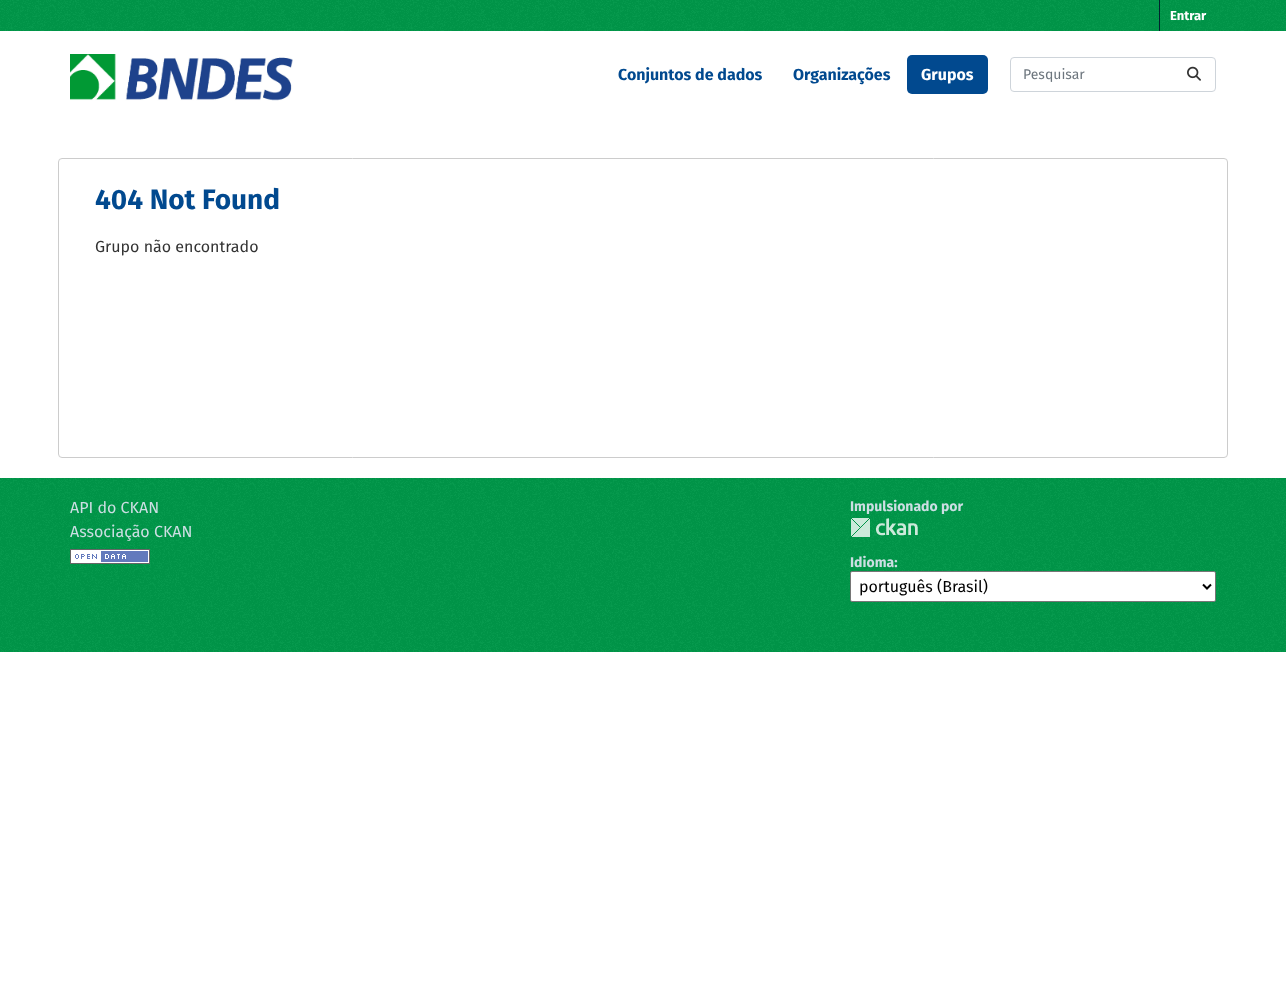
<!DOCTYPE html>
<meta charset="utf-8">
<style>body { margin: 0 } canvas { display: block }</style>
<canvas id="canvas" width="1286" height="991"></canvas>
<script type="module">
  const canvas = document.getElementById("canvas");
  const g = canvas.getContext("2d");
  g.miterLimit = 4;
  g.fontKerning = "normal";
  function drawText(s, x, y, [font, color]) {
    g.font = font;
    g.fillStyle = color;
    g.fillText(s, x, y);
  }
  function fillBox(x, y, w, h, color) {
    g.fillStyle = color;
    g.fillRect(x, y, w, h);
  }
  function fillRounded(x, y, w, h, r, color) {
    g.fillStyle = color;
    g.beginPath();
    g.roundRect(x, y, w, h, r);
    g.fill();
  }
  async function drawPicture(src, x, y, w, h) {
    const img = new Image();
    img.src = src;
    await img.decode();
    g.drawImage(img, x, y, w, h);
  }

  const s1 = ["bold 13px Fira Sans", "#FFFFFF"];
  const s2 = ["bold 16px Fira Sans", "#01498F"];
  const s3 = ["bold 16px Fira Sans", "#FFFFFF"];
  const s4 = ["14px Fira Sans", "#6C757D"];
  const s5 = ["bold 28px Fira Sans", "#01498F"];
  const s6 = ["16px Fira Sans", "#333333"];
  const s7 = ["16px Fira Sans", "#CCDEE3"];
  const s8 = ["bold 14px Fira Sans", "#CCDEE3"];
  const s9 = ["16px Fira Sans", "#000000"];

  fillBox(0, 0, 1286, 991, "#FFFFFF");
  fillBox(0, 0, 1286, 31, "#00984A");
  await drawPicture("pic1.png", 0, 0, 1286, 31);
  fillBox(1159, 0, 1, 31, "#00232E");
  drawText("Entrar", 1170, 20, s1);
  await drawPicture("pic2.png", 70, 54, 223, 47);
  drawText("Conjuntos de dados", 618, 80, s2);
  drawText("Organizações", 793, 80, s2);
  fillRounded(907, 55, 81, 39, 5, "#01498F");
  drawText("Grupos", 921, 80, s3);
  g.beginPath();
  g.roundRect(1010.5, 57.5, 205, 34, 3.5);
  g.strokeStyle = "#CED4DA";
  g.stroke();
  drawText("Pesquisar", 1023, 79, s4);
  await drawPicture("pic3.png", 1187, 66, 14, 15);
  g.beginPath();
  g.roundRect(58.5, 158.5, 1169, 299, 3.5);
  g.strokeStyle = "#CCCCCC";
  g.stroke();
  drawText("404 Not Found", 95, 209, s5);
  drawText("Grupo não encontrado", 95, 252, s6);
  fillBox(0, 478, 1286, 174, "#00984A");
  await drawPicture("pic4.png", 0, 478, 1286, 174);
  drawText("API do CKAN", 70, 513, s7);
  drawText("Associação CKAN", 70, 537, s7);
  await drawPicture("pic5.png", 70, 549, 80, 15);
  drawText("Impulsionado por", 850, 511, s8);
  await drawPicture("pic6.png", 851, 518, 67, 19);
  drawText("Idioma:", 850, 567, s8);
  g.fillStyle = "#FFFFFF";
  g.beginPath();
  g.roundRect(850.5, 571.5, 365, 30, 1.5);
  g.fill();
  g.strokeStyle = "#767676";
  g.stroke();
  g.beginPath();
  g.moveTo(1203, 584.5);
  g.lineTo(1207, 588.5);
  g.lineTo(1211, 584.5);
  g.strokeStyle = "#000000";
  g.lineWidth = 2;
  g.stroke();
  drawText("português (Brasil)", 859, 592, s9);
</script>
